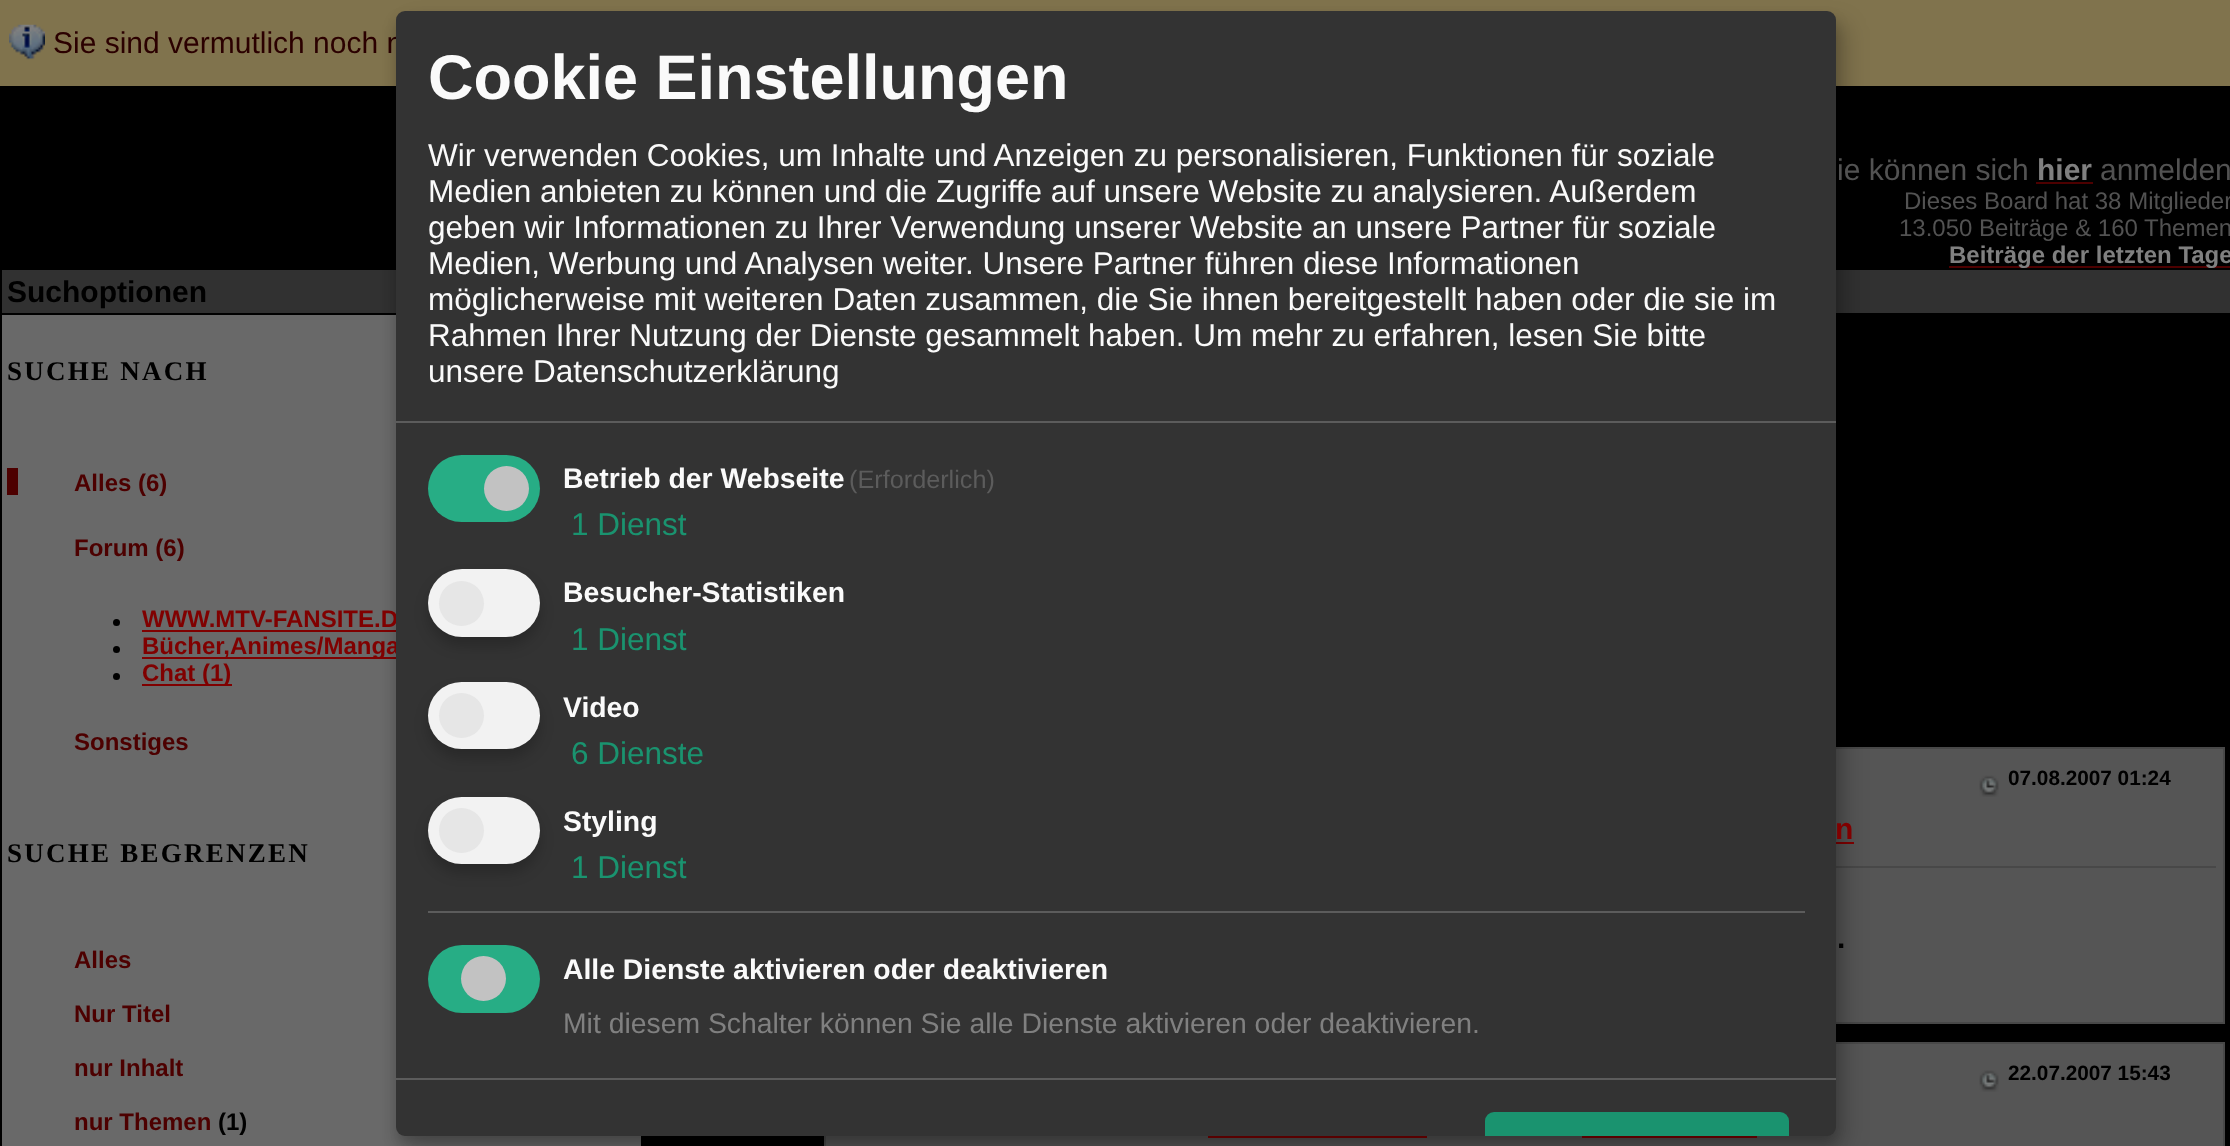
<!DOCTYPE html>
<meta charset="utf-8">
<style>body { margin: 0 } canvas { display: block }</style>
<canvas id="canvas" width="2230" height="1146"></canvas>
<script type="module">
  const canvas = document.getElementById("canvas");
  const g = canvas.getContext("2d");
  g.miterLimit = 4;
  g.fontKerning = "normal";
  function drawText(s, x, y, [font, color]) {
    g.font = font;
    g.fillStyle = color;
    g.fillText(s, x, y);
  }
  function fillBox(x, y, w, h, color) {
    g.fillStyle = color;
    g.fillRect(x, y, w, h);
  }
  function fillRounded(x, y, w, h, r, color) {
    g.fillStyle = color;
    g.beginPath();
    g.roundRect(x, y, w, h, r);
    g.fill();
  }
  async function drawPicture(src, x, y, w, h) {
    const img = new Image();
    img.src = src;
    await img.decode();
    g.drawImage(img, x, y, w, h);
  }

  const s1 = ["30px Liberation Sans", "#2B0000"];
  const s2 = ["bold 24px Liberation Sans", "#800000"];
  const s3 = ["bold 63px Liberation Sans", "#FAFAFA"];
  const s4 = ["31.5px Liberation Sans", "#FAFAFA"];
  const s5 = ["bold 28.35px Liberation Sans", "#FAFAFA"];
  const s6 = ["25.25px Liberation Sans", "#5C5C5C"];
  const s7 = ["31.5px Liberation Sans", "#1A936F"];
  const s8 = ["28.35px Liberation Sans", "#808080"];
  const s9 = ["30px Liberation Sans", "#525252"];
  const s10 = ["bold 30px Liberation Sans", "#808080"];
  const s11 = ["24px Liberation Sans", "#525252"];
  const s12 = ["bold 24px Liberation Sans", "#808080"];
  const s13 = ["bold 30px Liberation Sans", "#000000"];
  const s14 = ["bold 27px Liberation Serif", "#000000"];
  const s15 = ["bold 24px Liberation Sans", "#4D0000"];
  const s16 = ["bold 24px Liberation Sans", "#000000"];
  const s17 = ["bold 20.75px Liberation Sans", "#000000"];
  const s18 = ["bold 30px Liberation Sans", "#800000"];

  fillBox(0, 0, 2230, 1146, "#000000");
  fillBox(0, 0, 2230, 86, "#80734D");
  await drawPicture("pic1.png", 9, 24, 36, 36);
  drawText("Sie sind vermutlich noch n", 53, 53, s1);
  fillBox(2, 270, 2228, 43, "#313131");
  fillBox(2, 315, 639, 831, "#696969");
  fillBox(142, 630, 254, 2, "#800000");
  fillBox(142, 657, 254, 2, "#800000");
  fillBox(1836, 749, 387, 273, "#555555");
  g.strokeStyle = "#484848";
  g.lineWidth = 2;
  g.strokeRect(825, 748, 1399, 275);
  fillBox(1836, 842, 18, 2, "#800000");
  fillBox(1836, 866, 380, 2, "#484848");
  g.fillStyle = "#555555";
  g.beginPath();
  g.rect(825, 1043, 1399, 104);
  g.fill();
  g.stroke();
  fillBox(1208, 1136, 219, 2, "#800000");
  fillBox(1582, 1136, 175, 2, "#800000");
  g.fillStyle = "rgba(0, 0, 0, 0.19)";
  g.filter = "blur(11px)";
  g.beginPath();
  g.roundRect(407, 23, 1440, 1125, 9);
  g.fill();
  g.filter = "none";
  g.fillStyle = "rgba(0, 0, 0, 0.2)";
  g.filter = "blur(7px)";
  g.beginPath();
  g.roundRect(396, 20, 1440, 1125, 9);
  g.fill();
  g.filter = "none";
  drawText("WWW.MTV-FANSITE.D", 142, 627, s2);
  drawText("Bücher,Animes/Manga", 142, 654, s2);
  fillRounded(396, 11, 1440, 1125, 9, "#333333");
  fillBox(396, 421, 1440, 2, "#5C5C5C");
  drawText("Cookie Einstellungen", 428, 99, s3);
  drawText("Wir verwenden Cookies, um Inhalte und Anzeigen zu personalisieren, Funktionen für soziale", 428, 166, s4);
  drawText("Medien anbieten zu können und die Zugriffe auf unsere Website zu analysieren. Außerdem", 428, 202, s4);
  drawText("geben wir Informationen zu Ihrer Verwendung unserer Website an unsere Partner für soziale", 428, 238, s4);
  drawText("Medien, Werbung und Analysen weiter. Unsere Partner führen diese Informationen", 428, 274, s4);
  drawText("möglicherweise mit weiteren Daten zusammen, die Sie ihnen bereitgestellt haben oder die sie im", 428, 310, s4);
  drawText("Rahmen Ihrer Nutzung der Dienste gesammelt haben. Um mehr zu erfahren, lesen Sie bitte", 428, 346, s4);
  drawText("unsere Datenschutzerklärung", 428, 382, s4);
  fillRounded(428, 455, 112, 67, 33.5, "#27AD85");
  g.fillStyle = "#C2C2C2";
  g.beginPath();
  g.arc(506.5, 488.5, 22.5, 0, Math.PI * 2);
  g.fill();
  drawText("Betrieb der Webseite", 563, 488, s5);
  drawText("(Erforderlich)", 849, 488, s6);
  drawText("1 Dienst", 571, 535, s7);
  g.fillStyle = "rgba(0, 0, 0, 0.2)";
  g.filter = "blur(7px)";
  g.beginPath();
  g.roundRect(428, 578, 112, 68, 34);
  g.fill();
  g.filter = "none";
  fillRounded(428, 569, 112, 68, 34, "#F2F2F2");
  g.fillStyle = "#E6E6E6";
  g.beginPath();
  g.arc(461.5, 603.5, 22.5, 0, Math.PI * 2);
  g.fill();
  drawText("Besucher-Statistiken", 563, 602, s5);
  drawText("1 Dienst", 571, 650, s7);
  g.fillStyle = "rgba(0, 0, 0, 0.2)";
  g.filter = "blur(7px)";
  g.beginPath();
  g.roundRect(428, 691, 112, 67, 33.5);
  g.fill();
  g.filter = "none";
  fillRounded(428, 682, 112, 67, 33.5, "#F2F2F2");
  g.fillStyle = "#E6E6E6";
  g.beginPath();
  g.arc(461.5, 715.5, 22.5, 0, Math.PI * 2);
  g.fill();
  drawText("Video", 563, 717, s5);
  drawText("6 Dienste", 571, 764, s7);
  g.fillStyle = "rgba(0, 0, 0, 0.2)";
  g.filter = "blur(7px)";
  g.beginPath();
  g.roundRect(428, 806, 112, 67, 33.5);
  g.fill();
  g.filter = "none";
  fillRounded(428, 797, 112, 67, 33.5, "#F2F2F2");
  g.fillStyle = "#E6E6E6";
  g.beginPath();
  g.arc(461.5, 830.5, 22.5, 0, Math.PI * 2);
  g.fill();
  drawText("Styling", 563, 831, s5);
  drawText("1 Dienst", 571, 878, s7);
  fillBox(428, 911, 1377, 2, "#5C5C5C");
  fillRounded(428, 945, 112, 68, 34, "#27AD85");
  g.fillStyle = "#C2C2C2";
  g.beginPath();
  g.arc(483.5, 978.5, 22.5, 0, Math.PI * 2);
  g.fill();
  drawText("Alle Dienste aktivieren oder deaktivieren", 563, 979, s5);
  drawText("Mit diesem Schalter können Sie alle Dienste aktivieren oder deaktivieren.", 563, 1033, s8);
  fillBox(396, 1078, 1440, 2, "#5C5C5C");
  g.fillStyle = "#1A936F";
  g.beginPath();
  g.roundRect(1485, 1112, 304, 24, [9, 9, 0, 0]);
  g.fill();
  drawText("ie können sich", 1837, 180, s9);
  drawText("hier", 2037, 180, s10);
  fillBox(2036, 182, 57, 2, "#4D0000");
  drawText("anmelden", 2100, 180, s9);
  drawText("Dieses Board hat 38 Mitglieder", 1904, 209, s11);
  drawText("13.050 Beiträge & 160 Themen", 1899, 236, s11);
  fillBox(1949, 266, 281, 2, "#4D0000");
  drawText("Beiträge der letzten Tage", 1949, 263, s12);
  drawText("Suchoptionen", 7, 302, s13);
  g.letterSpacing = "2.25px";
  drawText("SUCHE NACH", 7, 380, s14);
  g.letterSpacing = "0px";
  drawText("Alles (6)", 74, 491, s15);
  fillBox(7, 468, 11, 27, "#4D0000");
  drawText("Forum (6)", 74, 556, s15);
  g.fillStyle = "#000000";
  g.beginPath();
  g.arc(116.5, 622.5, 3.5, 0, Math.PI * 2);
  g.fill();
  g.beginPath();
  g.arc(116.5, 649.5, 3.5, 0, Math.PI * 2);
  g.fill();
  g.beginPath();
  g.arc(116.5, 676.5, 3.5, 0, Math.PI * 2);
  g.fill();
  fillBox(142, 684, 90, 2, "#800000");
  drawText("Chat (1)", 142, 681, s2);
  drawText("Sonstiges", 74, 750, s15);
  g.letterSpacing = "2.25px";
  drawText("SUCHE BEGRENZEN", 7, 862, s14);
  g.letterSpacing = "0px";
  drawText("Alles", 74, 968, s15);
  drawText("Nur Titel", 74, 1022, s15);
  drawText("nur Inhalt", 74, 1076, s15);
  drawText("nur Themen", 74, 1130, s15);
  drawText("(1)", 218, 1130, s16);
  await drawPicture("pic2.png", 1979, 775, 20, 22);
  drawText("07.08.2007 01:24", 2008, 785, s17);
  drawText("n", 1835, 839, s18);
  drawText(".", 1837, 948, s13);
  await drawPicture("pic3.png", 1979, 1070, 20, 22);
  drawText("22.07.2007 15:43", 2008, 1080, s17);
</script>
